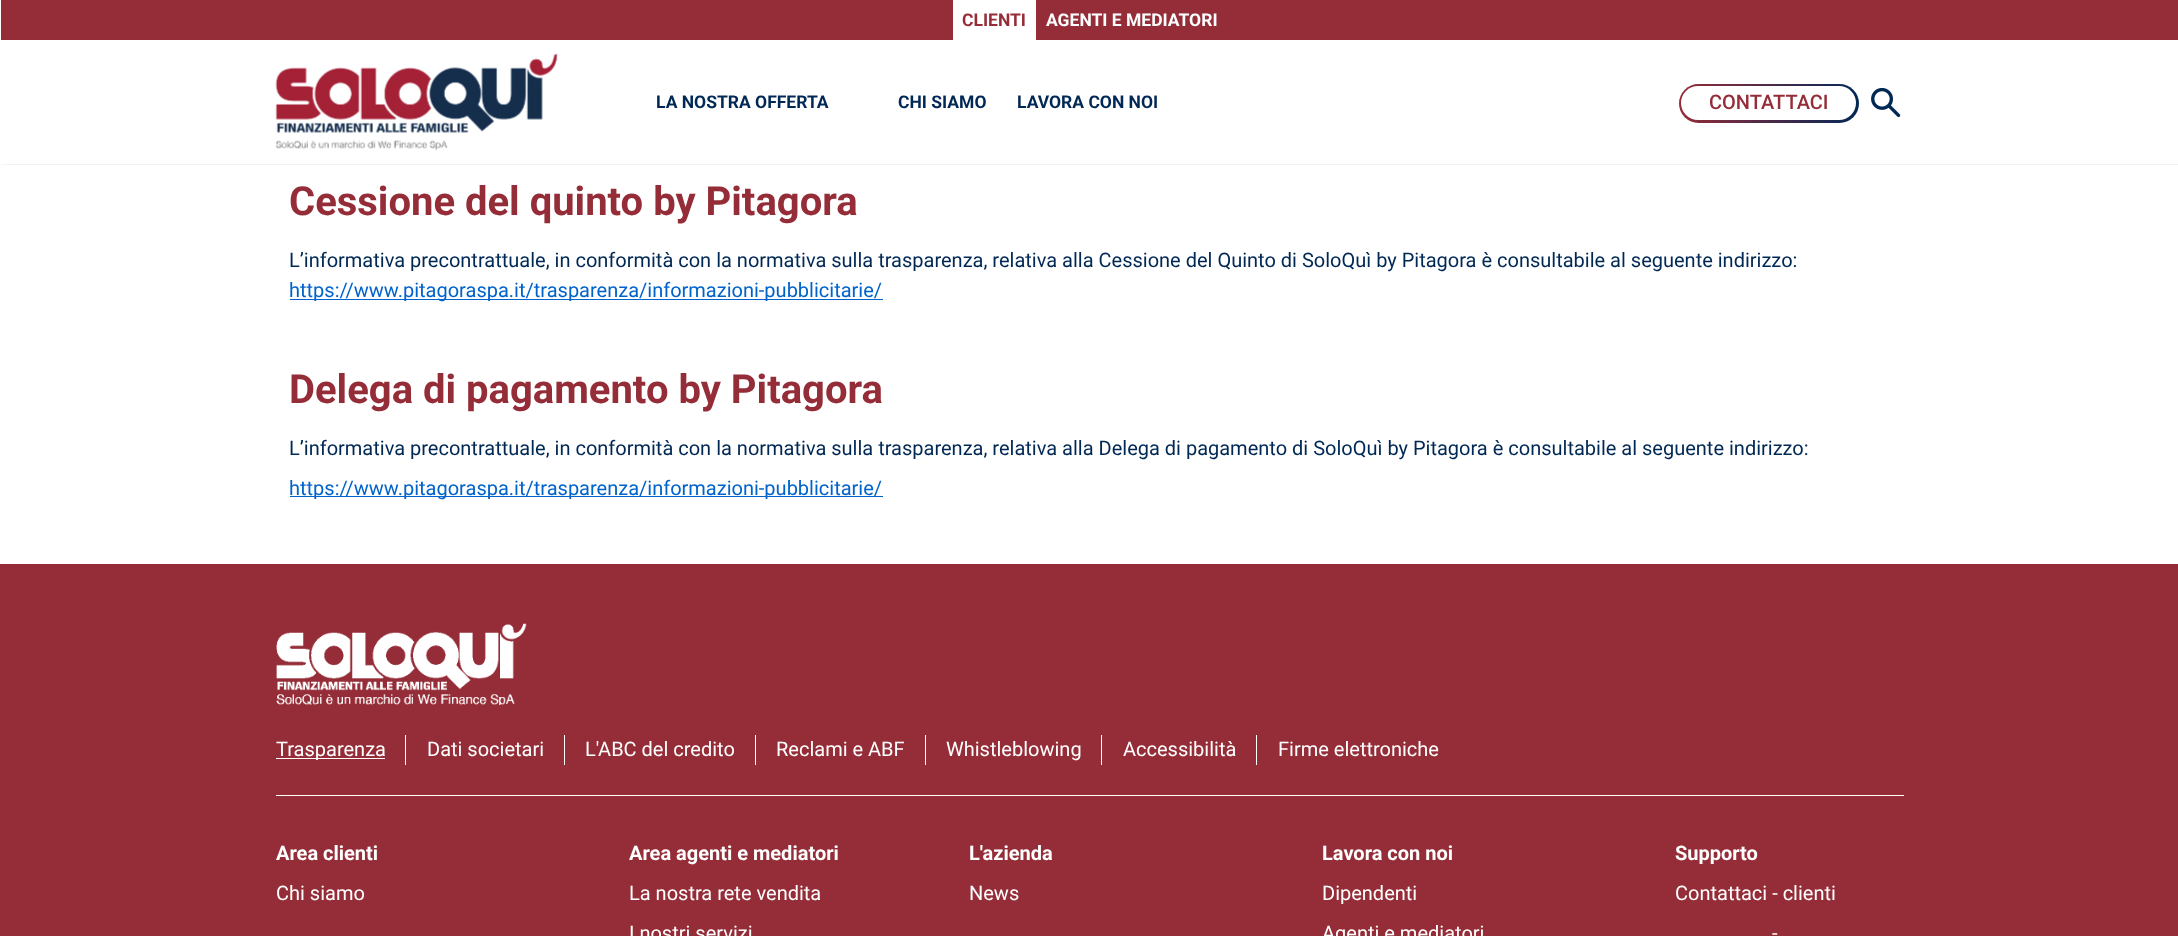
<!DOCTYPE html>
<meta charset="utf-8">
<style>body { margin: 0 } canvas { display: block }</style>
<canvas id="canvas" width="2178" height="936"></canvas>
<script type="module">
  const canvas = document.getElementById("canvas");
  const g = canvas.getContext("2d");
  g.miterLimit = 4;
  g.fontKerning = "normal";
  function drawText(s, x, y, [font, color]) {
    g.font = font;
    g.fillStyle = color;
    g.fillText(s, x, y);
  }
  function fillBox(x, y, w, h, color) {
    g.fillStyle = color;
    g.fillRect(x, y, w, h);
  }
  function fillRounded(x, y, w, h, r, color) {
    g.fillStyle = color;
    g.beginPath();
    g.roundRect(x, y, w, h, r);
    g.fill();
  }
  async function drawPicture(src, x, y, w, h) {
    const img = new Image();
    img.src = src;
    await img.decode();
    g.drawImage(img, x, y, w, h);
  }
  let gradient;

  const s1 = ["bold 17.5px Roboto", "#952D38"];
  const s2 = ["bold 17.5px Roboto", "#FFFFFF"];
  const s3 = ["bold 17.5px Roboto", "#002855"];
  const s4 = ["500 20px Roboto", "#952D38"];
  const s5 = ["bold 40px Roboto", "#952D38"];
  const s6 = ["20px Roboto", "#002855"];
  const s7 = ["20px Roboto", "#0063CC"];
  const s8 = ["20px Roboto", "#FFFFFF"];
  const s9 = ["bold 20px Roboto", "#FFFFFF"];

  fillBox(0, 0, 2178, 936, "#FFFFFF");
  fillBox(1, 0, 2177, 40, "#952D38");
  fillBox(953, 0, 83, 40, "#FFFFFF");
  drawText("CLIENTI", 962, 26, s1);
  drawText("AGENTI E MEDIATORI", 1046, 26, s2);
  await drawPicture("pic1.png", 275, 53, 283, 98);
  drawText("LA NOSTRA OFFERTA", 656, 108, s3);
  drawText("CHI SIAMO", 898, 108, s3);
  drawText("LAVORA CON NOI", 1017, 108, s3);
  gradient = g.createLinearGradient(1858, 103, 1678, 103);
  gradient.addColorStop(0, "#002855");
  gradient.addColorStop(0.06, "#0E2855");
  gradient.addColorStop(1, "#952D38");
  g.fillStyle = gradient;
  g.beginPath();
  g.roundRect(1679, 84, 180, 39, 19.5);
  g.fill();
  fillRounded(1681, 86, 175, 34, 17, "#FFFFFF");
  drawText("CONTATTACI", 1709, 109, s4);
  await drawPicture("pic2.png", 1871, 87, 30, 31);
  fillBox(1, 164, 2177, 1, "#F1F2F8");
  drawText("Cessione del quinto by Pitagora", 289, 215, s5);
  drawText("L’informativa precontrattuale, in conformità con la normativa sulla trasparenza, relativa alla Cessione del Quinto di SoloQuì by Pitagora è consultabile al seguente indirizzo:", 289, 267, s6);
  fillBox(290, 299, 593, 1, "#0063CC");
  drawText("https://www.pitagoraspa.it/trasparenza/informazioni-pubblicitarie/", 289, 297, s7);
  drawText("Delega di pagamento by Pitagora", 289, 403, s5);
  drawText("L’informativa precontrattuale, in conformità con la normativa sulla trasparenza, relativa alla Delega di pagamento di SoloQuì by Pitagora è consultabile al seguente indirizzo:", 289, 455, s6);
  fillBox(290, 496, 593, 1, "#0063CC");
  drawText("https://www.pitagoraspa.it/trasparenza/informazioni-pubblicitarie/", 289, 495, s7);
  fillBox(0, 564, 2178, 372, "#952D38");
  await drawPicture("pic3.png", 276, 623, 251, 82);
  fillBox(276, 758, 109, 1, "#FFFFFF");
  drawText("Trasparenza", 276, 756, s8);
  fillBox(405, 735, 1, 30, "#FFFFFF");
  drawText("Dati societari", 427, 756, s8);
  fillBox(564, 735, 1, 30, "#FFFFFF");
  drawText("L'ABC del credito", 585, 756, s8);
  fillBox(755, 735, 1, 30, "#FFFFFF");
  drawText("Reclami e ABF", 776, 756, s8);
  fillBox(925, 735, 1, 30, "#FFFFFF");
  drawText("Whistleblowing", 946, 756, s8);
  fillBox(1101, 735, 1, 30, "#FFFFFF");
  drawText("Accessibilità", 1123, 756, s8);
  fillBox(1256, 735, 1, 30, "#FFFFFF");
  drawText("Firme elettroniche", 1278, 756, s8);
  fillBox(276, 795, 1628, 1, "#FFFFFF");
  drawText("Area clienti", 276, 860, s9);
  drawText("Chi siamo", 276, 900, s8);
  drawText("Area agenti e mediatori", 629, 860, s9);
  drawText("La nostra rete vendita", 629, 900, s8);
  drawText("I nostri servizi", 629, 940, s8);
  drawText("L'azienda", 969, 860, s9);
  drawText("News", 969, 900, s8);
  drawText("Lavora con noi", 1322, 860, s9);
  drawText("Dipendenti", 1322, 900, s8);
  drawText("Agenti e mediatori", 1322, 940, s8);
  drawText("Supporto", 1675, 860, s9);
  drawText("Contattaci - clienti", 1675, 900, s8);
  drawText("-", 1772, 940, s8);
</script>
